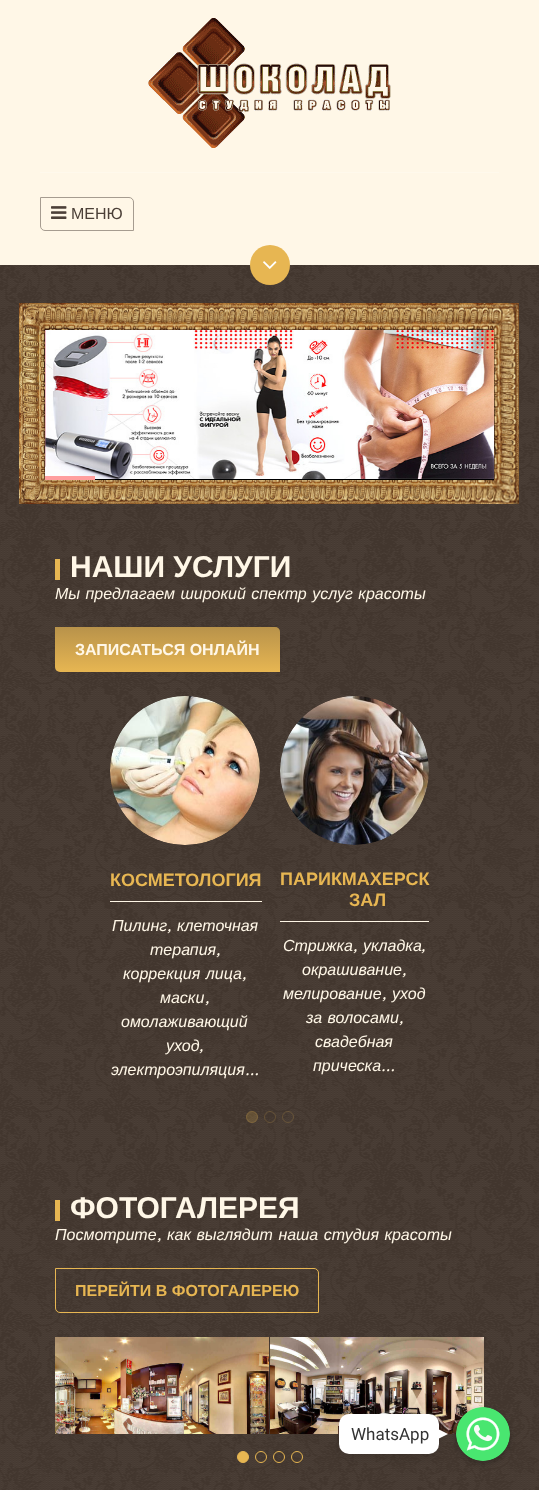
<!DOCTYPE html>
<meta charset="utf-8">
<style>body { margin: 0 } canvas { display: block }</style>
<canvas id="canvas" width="539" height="1490"></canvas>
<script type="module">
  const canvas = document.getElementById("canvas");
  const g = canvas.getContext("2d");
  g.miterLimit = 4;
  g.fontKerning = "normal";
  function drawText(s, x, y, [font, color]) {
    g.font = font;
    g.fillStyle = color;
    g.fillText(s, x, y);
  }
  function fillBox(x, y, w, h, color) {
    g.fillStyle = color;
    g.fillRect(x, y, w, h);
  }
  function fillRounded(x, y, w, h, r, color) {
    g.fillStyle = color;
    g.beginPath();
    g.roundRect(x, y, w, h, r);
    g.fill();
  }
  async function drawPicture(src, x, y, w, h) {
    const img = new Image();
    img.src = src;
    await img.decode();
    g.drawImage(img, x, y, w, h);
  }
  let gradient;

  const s1 = ["16px Liberation Sans", "#4C4038"];
  const s2 = ["bold 30px Liberation Sans", "#FFF7E7"];
  const s3 = ["italic 16px Liberation Sans", "#FFF7E7"];
  const s4 = ["bold 16px Liberation Sans", "#FFF7E7"];
  const s5 = ["bold 18px Liberation Sans", "#E7B652"];
  const s6 = ["italic 16px Work Sans", "#FFF7E7"];
  const s7 = ["bold 16px Liberation Sans", "#E7B652"];
  const s8 = ["17px Roboto", "#333333"];

  fillBox(0, 0, 539, 1490, "#FFFFFF");
  await drawPicture("pic1.png", 0, 265, 539, 1225);
  fillBox(0, 0, 539, 265, "#FFF7E7");
  await drawPicture("pic2.png", 148, 18, 243, 130);
  fillBox(40, 172, 459, 1, "#FFF9EC");
  g.beginPath();
  g.roundRect(40.5, 197.5, 93, 33, [0, 4.5, 0, 4.5]);
  g.strokeStyle = "#A69C90";
  g.stroke();
  await drawPicture("pic3.png", 51, 206, 16, 13);
  drawText("МЕНЮ", 71, 219, s1);
  g.fillStyle = "#E7B652";
  g.beginPath();
  g.arc(270, 265, 20, 0, Math.PI * 2);
  g.fill();
  await drawPicture("pic4.png", 263, 261, 14, 8);
  await drawPicture("pic5.png", 19, 303, 500, 201);
  fillBox(95, 479, 399, 1, "#000000");
  await drawPicture("pic6.png", 45, 330, 449, 149);
  fillBox(45, 476, 50, 4, "#FF9E9E");
  fillBox(55, 559, 5, 21, "#E7B652");
  drawText("НАШИ УСЛУГИ", 70, 577, s2);
  g.wordSpacing = "1px";
  drawText("Мы предлагаем широкий спектр услуг красоты", 55, 599, s3);
  g.fillStyle = "#E7B652";
  g.beginPath();
  g.roundRect(55, 627, 225, 45, [0, 5, 0, 5]);
  g.fill();
  gradient = g.createLinearGradient(168, 627, 168, 672);
  gradient.addColorStop(0, "rgba(76, 64, 56, 0.3)");
  gradient.addColorStop(1, "rgba(76, 64, 56, 0)");
  g.fillStyle = gradient;
  g.beginPath();
  g.roundRect(55, 627, 225, 45, [0, 5, 0, 5]);
  g.fill();
  g.wordSpacing = "0px";
  drawText("ЗАПИСАТЬСЯ ОНЛАЙН", 75, 655, s4);
  await drawPicture("pic7.png", 110, 696, 150, 149);
  fillBox(110, 901, 152, 1, "#FFF7E7");
  drawText("КОСМЕТОЛОГИЯ", 110, 886, s5);
  drawText("Пилинг", 112, 931, s3);
  drawText(",", 167, 931, s6);
  drawText("клеточная", 177, 931, s3);
  drawText("терапия", 150, 955, s3);
  drawText(",", 216, 955, s6);
  g.wordSpacing = "1px";
  drawText("коррекция лица", 123, 979, s3);
  g.wordSpacing = "0px";
  drawText(",", 242, 979, s6);
  drawText("маски", 160, 1003, s3);
  drawText(",", 205, 1003, s6);
  drawText("омолаживающий", 121, 1027, s3);
  drawText("уход", 166, 1051, s3);
  drawText(",", 199, 1051, s6);
  drawText("электроэпиляция", 111, 1075, s3);
  drawText("…", 245, 1075, s6);
  await drawPicture("pic8.png", 280, 696, 149, 149);
  fillBox(280, 921, 149, 1, "#FFF7E7");
  drawText("ПАРИКМАХЕРСК", 280, 885, s5);
  drawText("ЗАЛ", 349, 906, s5);
  drawText("Стрижка", 283, 951, s3);
  drawText(",", 353, 951, s6);
  drawText("укладка", 363, 951, s3);
  drawText(",", 421, 951, s6);
  drawText("окрашивание", 302, 975, s3);
  drawText(",", 402, 975, s6);
  drawText("мелирование", 283, 999, s3);
  drawText(",", 382, 999, s6);
  drawText("уход", 392, 999, s3);
  g.wordSpacing = "1px";
  drawText("за волосами", 306, 1023, s3);
  g.wordSpacing = "0px";
  drawText(",", 399, 1023, s6);
  drawText("свадебная", 315, 1047, s3);
  drawText("прическа", 313, 1071, s3);
  drawText("…", 381, 1071, s6);
  g.fillStyle = "rgba(231, 182, 82, 0.2)";
  g.beginPath();
  g.arc(252, 1117, 6, 0, Math.PI * 2);
  g.fill();
  g.beginPath();
  g.arc(252, 1117, 5.5, 0, Math.PI * 2);
  g.strokeStyle = "rgba(231, 182, 82, 0.2)";
  g.stroke();
  g.beginPath();
  g.arc(270, 1117, 5.5, 0, Math.PI * 2);
  g.stroke();
  g.beginPath();
  g.arc(288, 1117, 5.5, 0, Math.PI * 2);
  g.stroke();
  fillBox(55, 1200, 5, 21, "#E7B652");
  drawText("ФОТОГАЛЕРЕЯ", 70, 1218, s2);
  drawText("Посмотрите", 55, 1240, s3);
  drawText(",", 157, 1240, s6);
  g.wordSpacing = "1px";
  drawText("как выглядит наша студия красоты", 167, 1240, s3);
  g.beginPath();
  g.roundRect(55.5, 1268.5, 263, 44, [0, 4.5, 0, 4.5]);
  g.strokeStyle = "#E7B652";
  g.stroke();
  g.wordSpacing = "0px";
  drawText("ПЕРЕЙТИ В ФОТОГАЛЕРЕЮ", 75, 1296, s7);
  await drawPicture("pic9.png", 55, 1337, 214, 97);
  await drawPicture("pic10.png", 270, 1337, 214, 97);
  g.beginPath();
  g.arc(243, 1457, 5.5, 0, Math.PI * 2);
  g.fill();
  g.stroke();
  g.beginPath();
  g.arc(261, 1457, 5.5, 0, Math.PI * 2);
  g.stroke();
  g.beginPath();
  g.arc(279, 1457, 5.5, 0, Math.PI * 2);
  g.stroke();
  g.beginPath();
  g.arc(297, 1457, 5.5, 0, Math.PI * 2);
  g.stroke();
  g.fillStyle = "rgba(0, 0, 0, 0.15)";
  g.filter = "blur(4px)";
  g.beginPath();
  g.roundRect(339, 1416, 100, 40, 10);
  g.fill();
  g.filter = "none";
  fillRounded(339, 1414, 100, 40, 10, "#FFFFFF");
  drawText("WhatsApp", 351, 1440, s8);
  g.fillStyle = "rgba(0, 0, 0, 0.25)";
  g.filter = "blur(3px)";
  g.beginPath();
  g.roundRect(456, 1410, 54, 54, 27);
  g.fill();
  g.filter = "none";
  g.fillStyle = "#FFFFFF";
  g.beginPath();
  g.moveTo(438, 1439);
  g.lineTo(438, 1429);
  g.lineTo(448, 1434);
  g.closePath();
  g.fill();
  await drawPicture("pic11.png", 456, 1407, 54, 54);
</script>
